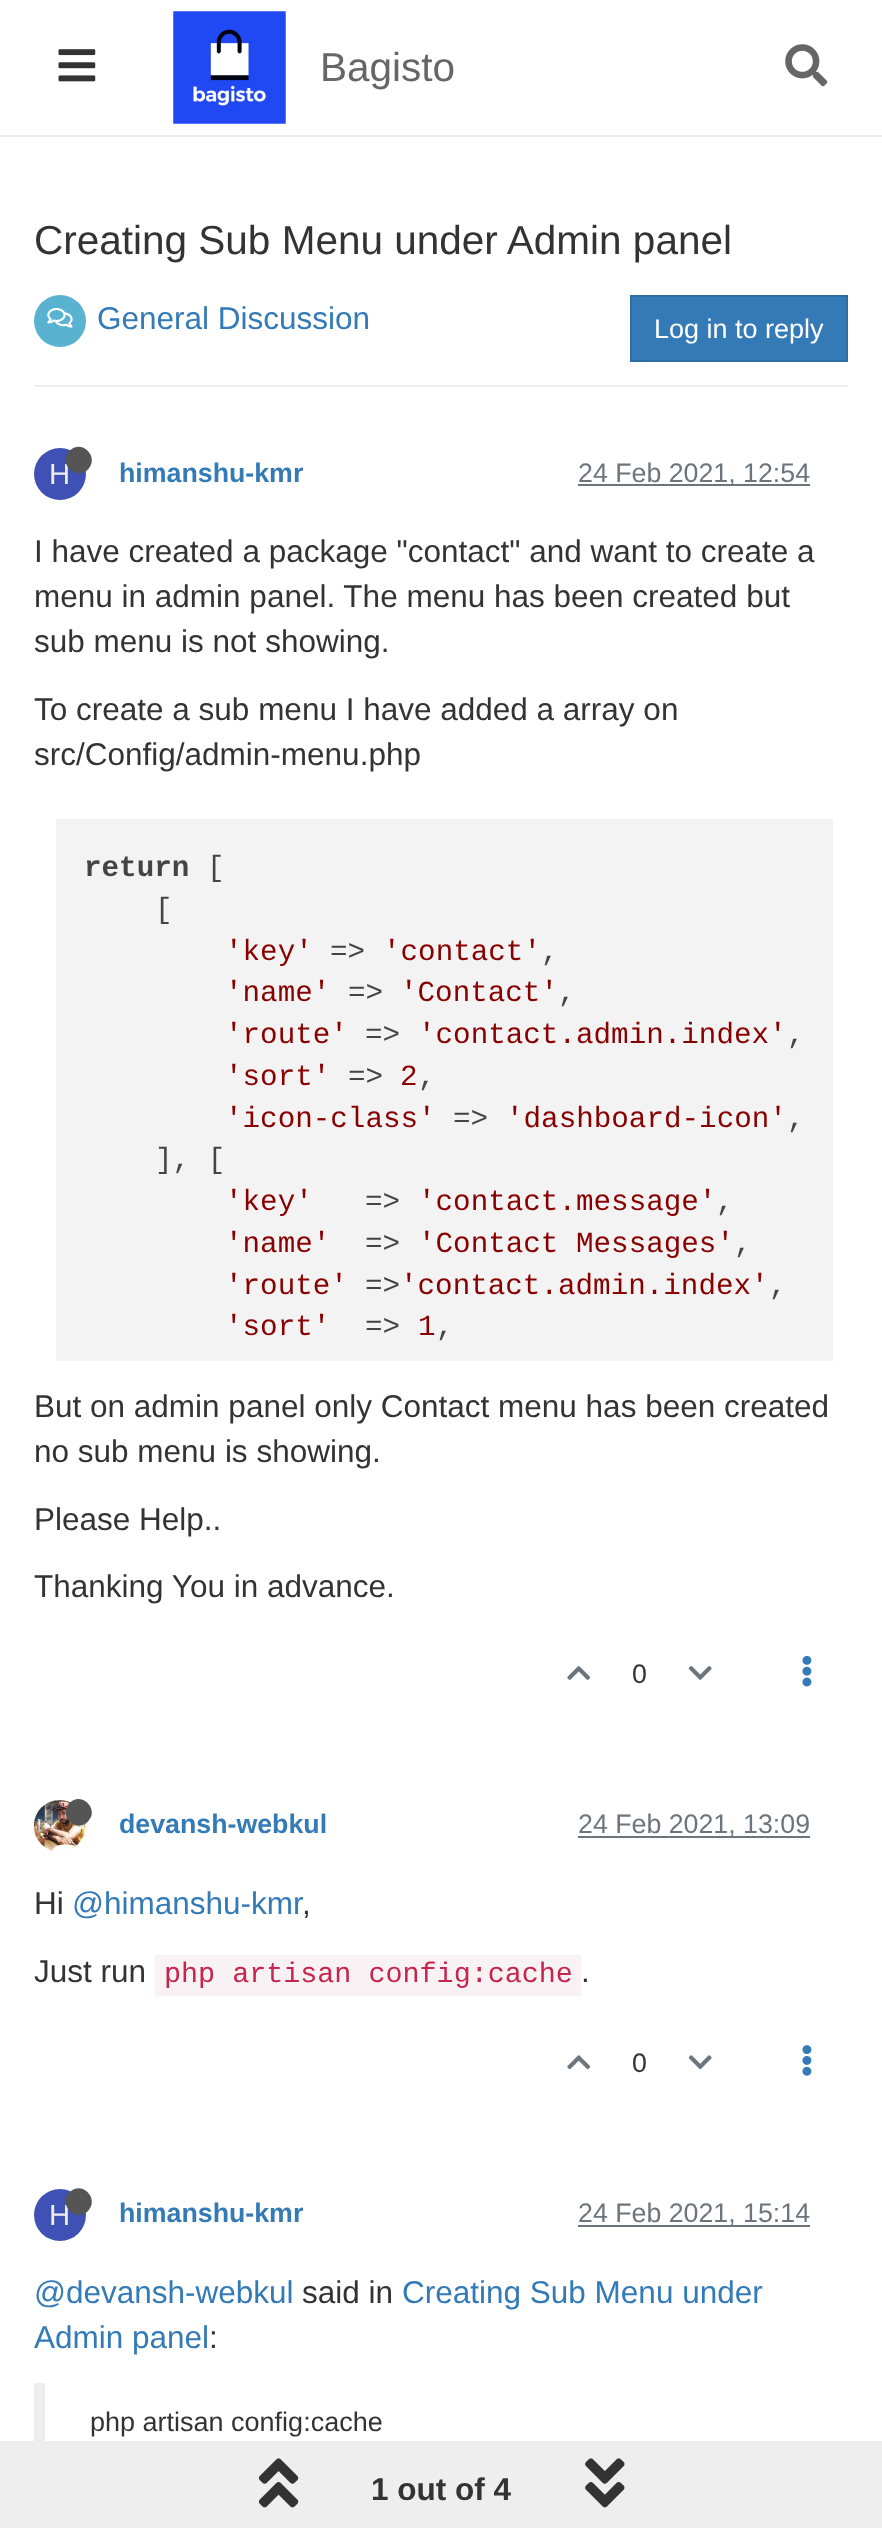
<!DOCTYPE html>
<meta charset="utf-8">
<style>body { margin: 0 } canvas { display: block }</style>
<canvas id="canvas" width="882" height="2528"></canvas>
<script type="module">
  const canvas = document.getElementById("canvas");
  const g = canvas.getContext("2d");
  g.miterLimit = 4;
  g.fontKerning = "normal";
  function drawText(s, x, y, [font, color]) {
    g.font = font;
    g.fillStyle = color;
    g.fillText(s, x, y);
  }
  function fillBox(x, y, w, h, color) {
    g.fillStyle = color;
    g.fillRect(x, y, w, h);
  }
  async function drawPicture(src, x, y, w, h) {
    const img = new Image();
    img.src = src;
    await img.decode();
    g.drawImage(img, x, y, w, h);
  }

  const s1 = ["40.5px Liberation Sans", "#666666"];
  const s2 = ["40.5px Liberation Sans", "#333333"];
  const s3 = ["31.5px Liberation Sans", "#337AB7"];
  const s4 = ["27px Liberation Sans", "#FFFFFF"];
  const s5 = ["29.25px Liberation Sans", "#EEEEEE"];
  const s6 = ["bold 26.75px Liberation Sans", "#337AB7"];
  const s7 = ["26.75px Liberation Sans", "#6C757D"];
  const s8 = ["31.5px Liberation Sans", "#333333"];
  const s9 = ["bold 29.25px Liberation Mono", "#444444"];
  const s10 = ["29.25px Liberation Mono", "#444444"];
  const s11 = ["29.25px Liberation Mono", "#880000"];
  const s12 = ["26.75px Liberation Sans", "#333333"];
  const s13 = ["28.4px Liberation Mono", "#C7254E"];
  const s14 = ["27px Liberation Sans", "#333333"];
  const s15 = ["bold 31.5px Liberation Sans", "#333333"];

  fillBox(0, 0, 882, 2528, "#FFFFFF");
  fillBox(0, 135, 882, 2, "#EEEEEE");
  await drawPicture("pic1.png", 58, 49, 38, 33);
  await drawPicture("pic2.png", 173, 11, 113, 113);
  drawText("Bagisto", 320, 81, s1);
  await drawPicture("pic3.png", 785, 44, 43, 43);
  drawText("Creating Sub Menu under Admin panel", 34, 254, s2);
  fillBox(34, 385, 814, 2, "#EEEEEE");
  g.fillStyle = "#59B3D0";
  g.beginPath();
  g.arc(60, 321, 26, 0, Math.PI * 2);
  g.fill();
  await drawPicture("pic4.png", 47, 308, 26, 20);
  drawText("General Discussion", 97, 329, s3);
  g.beginPath();
  g.rect(631, 296, 216, 65);
  g.fill();
  g.strokeStyle = "#2E6DA4";
  g.lineWidth = 2;
  g.stroke();
  drawText("Log in to reply", 654, 338, s4);
  g.fillStyle = "#3F51B5";
  g.beginPath();
  g.arc(60, 474, 26, 0, Math.PI * 2);
  g.fill();
  drawText("H", 49, 484, s5);
  g.fillStyle = "#555555";
  g.beginPath();
  g.moveTo(69.5, 451);
  g.bezierCurveTo(81.5, 438.5, 100, 457, 88, 469.5);
  g.bezierCurveTo(76, 481.5, 57.5, 463, 69.5, 451);
  g.closePath();
  g.fill();
  drawText("himanshu-kmr", 119, 482, s6);
  fillBox(578, 484, 232, 2, "#6C757D");
  drawText("24 Feb 2021, 12:54", 578, 482, s7);
  drawText("I have created a package \"contact\" and want to create a", 34, 562, s8);
  drawText("menu in admin panel. The menu has been created but", 34, 607, s8);
  drawText("sub menu is not showing.", 34, 652, s8);
  drawText("To create a sub menu I have added a array on", 34, 720, s8);
  drawText("src/Config/admin-menu.php", 34, 765, s8);
  fillBox(56, 819, 777, 542, "#F3F3F3");
  drawText("return", 84, 876, s9);
  drawText("[", 207, 876, s10);
  drawText("[", 155, 918, s10);
  drawText("'key'", 225, 960, s11);
  drawText("=>", 330, 960, s10);
  drawText("'contact'", 383, 960, s11);
  drawText(",", 541, 960, s10);
  drawText("'name'", 225, 1001, s11);
  drawText("=>", 348, 1001, s10);
  drawText("'Contact'", 400, 1001, s11);
  drawText(",", 558, 1001, s10);
  drawText("'route'", 225, 1043, s11);
  drawText("=>", 365, 1043, s10);
  drawText("'contact.admin.index'", 418, 1043, s11);
  drawText(",", 787, 1043, s10);
  drawText("'sort'", 225, 1085, s11);
  drawText("=>", 348, 1085, s10);
  drawText("2", 400, 1085, s11);
  drawText(",", 418, 1085, s10);
  drawText("'icon-class'", 225, 1127, s11);
  drawText("=>", 453, 1127, s10);
  drawText("'dashboard-icon'", 506, 1127, s11);
  drawText(",", 787, 1127, s10);
  drawText("], [", 155, 1168, s10);
  drawText("'key'", 225, 1210, s11);
  drawText("=>", 365, 1210, s10);
  drawText("'contact.message'", 418, 1210, s11);
  drawText(",", 716, 1210, s10);
  drawText("'name'", 225, 1252, s11);
  drawText("=>", 365, 1252, s10);
  drawText("'Contact Messages'", 418, 1252, s11);
  drawText(",", 734, 1252, s10);
  drawText("'route'", 225, 1294, s11);
  drawText("=>", 365, 1294, s10);
  drawText("'contact.admin.index'", 400, 1294, s11);
  drawText(",", 769, 1294, s10);
  drawText("'sort'", 225, 1335, s11);
  drawText("=>", 365, 1335, s10);
  drawText("1", 418, 1335, s11);
  drawText(",", 436, 1335, s10);
  drawText("But on admin panel only Contact menu has been created", 34, 1417, s8);
  drawText("no sub menu is showing.", 34, 1462, s8);
  drawText("Please Help..", 34, 1530, s8);
  drawText("Thanking You in advance.", 34, 1597, s8);
  await drawPicture("pic5.png", 567, 1666, 24, 14);
  drawText("0", 632, 1683, s12);
  await drawPicture("pic6.png", 688, 1666, 24, 14);
  await drawPicture("pic7.png", 802, 1655, 10, 32);
  await drawPicture("pic8.png", 33, 1800, 53, 51);
  g.fillStyle = "#555555";
  g.beginPath();
  g.moveTo(69.5, 1803);
  g.bezierCurveTo(81.5, 1791, 100, 1809.5, 88, 1821.5);
  g.bezierCurveTo(76, 1834, 57.5, 1815.5, 69.5, 1803);
  g.closePath();
  g.fill();
  drawText("devansh-webkul", 119, 1833, s6);
  fillBox(578, 1836, 232, 2, "#6C757D");
  drawText("24 Feb 2021, 13:09", 578, 1833, s7);
  drawText("Hi", 34, 1914, s8);
  drawText("@himanshu-kmr", 72, 1914, s3);
  drawText(",", 302, 1914, s8);
  drawText("Just run", 34, 1982, s8);
  fillBox(155, 1955, 426, 41, "#F9F2F4");
  drawText("php artisan config:cache", 164, 1982, s13);
  drawText(".", 581, 1982, s8);
  await drawPicture("pic9.png", 567, 2055, 24, 15);
  drawText("0", 632, 2072, s12);
  await drawPicture("pic10.png", 688, 2055, 24, 15);
  await drawPicture("pic11.png", 802, 2045, 10, 31);
  g.fillStyle = "#3F51B5";
  g.beginPath();
  g.arc(60, 2215, 26, 0, Math.PI * 2);
  g.fill();
  drawText("H", 49, 2225, s5);
  g.fillStyle = "#555555";
  g.beginPath();
  g.moveTo(69.5, 2192.5);
  g.bezierCurveTo(81.5, 2180, 100, 2198.5, 88, 2211);
  g.bezierCurveTo(76, 2223, 57.5, 2204.5, 69.5, 2192.5);
  g.closePath();
  g.fill();
  drawText("himanshu-kmr", 119, 2222, s6);
  fillBox(578, 2225, 232, 2, "#6C757D");
  drawText("24 Feb 2021, 15:14", 578, 2222, s7);
  drawText("@devansh-webkul", 34, 2303, s3);
  drawText("said in", 302, 2303, s8);
  drawText("Creating Sub Menu under", 402, 2303, s3);
  drawText("Admin panel", 34, 2348, s3);
  drawText(":", 209, 2348, s8);
  fillBox(34, 2383, 11, 58, "#EEEEEE");
  drawText("php artisan config:cache", 90, 2431, s14);
  fillBox(0, 2441, 882, 87, "#EEEEEE");
  await drawPicture("pic12.png", 258, 2458, 41, 50);
  drawText("1 out of 4", 371, 2500, s15);
  await drawPicture("pic13.png", 585, 2458, 40, 50);
</script>
